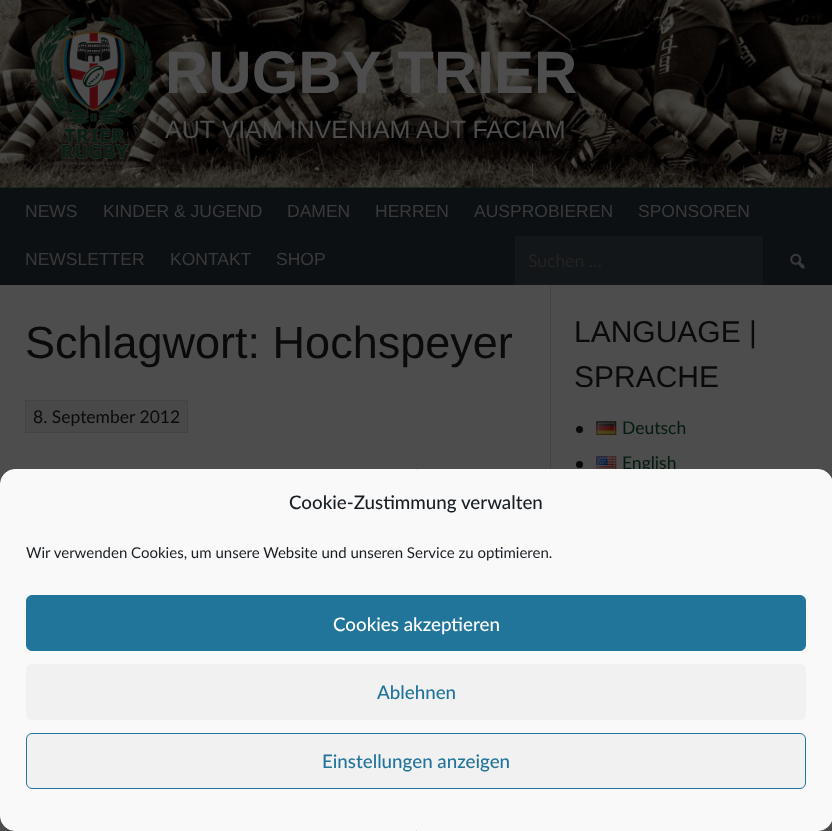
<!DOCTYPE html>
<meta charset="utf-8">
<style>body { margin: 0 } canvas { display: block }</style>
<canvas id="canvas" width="832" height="831"></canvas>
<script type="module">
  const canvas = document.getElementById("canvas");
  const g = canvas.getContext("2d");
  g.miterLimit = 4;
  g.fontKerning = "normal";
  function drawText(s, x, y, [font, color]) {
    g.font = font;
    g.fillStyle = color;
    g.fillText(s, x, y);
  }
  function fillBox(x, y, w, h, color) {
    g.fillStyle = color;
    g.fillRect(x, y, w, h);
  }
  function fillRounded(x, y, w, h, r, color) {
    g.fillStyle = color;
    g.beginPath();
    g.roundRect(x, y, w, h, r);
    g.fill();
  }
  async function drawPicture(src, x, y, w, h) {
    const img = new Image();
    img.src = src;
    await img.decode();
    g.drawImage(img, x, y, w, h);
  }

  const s1 = ["bold 60px Liberation Sans", "#4D4D4D"];
  const s2 = ["25px Liberation Sans", "#4D4D4D"];
  const s3 = ["17.5px Liberation Sans", "#393A3B"];
  const s4 = ["17.5px Lato", "#232323"];
  const s5 = ["45px Liberation Sans", "#0A0A0A"];
  const s6 = ["17.5px Lato", "#0A0A0A"];
  const s7 = ["30px Liberation Sans", "#0A0A0A"];
  const s8 = ["17.5px Lato", "#031B0E"];
  const s9 = ["500 18.75px Lato", "#191E23"];
  const s10 = ["15px Lato", "#191E23"];
  const s11 = ["500 18.75px Lato", "#FFFFFF"];
  const s12 = ["500 18.75px Lato", "#21759B"];

  fillBox(0, 0, 832, 831, "#031B0E");
  await drawPicture("pic1.png", 0, 0, 832, 188);
  await drawPicture("pic2.png", 35, 15, 118, 150);
  drawText("RUGBY TRIER", 165, 93, s1);
  drawText("AUT VIAM INVENIAM AUT FACIAM", 165, 138, s2);
  fillBox(0, 188, 832, 97, "#0D1013");
  drawText("NEWS", 25, 217, s3);
  drawText("KINDER & JUGEND", 103, 217, s3);
  drawText("DAMEN", 287, 217, s3);
  drawText("HERREN", 375, 217, s3);
  drawText("AUSPROBIEREN", 474, 217, s3);
  drawText("SPONSOREN", 638, 217, s3);
  drawText("NEWSLETTER", 25, 265, s3);
  drawText("KONTAKT", 170, 265, s3);
  drawText("SHOP", 276, 265, s3);
  fillBox(515, 236, 248, 49, "#131618");
  drawText("Suchen …", 528, 267, s4);
  await drawPicture("pic3.png", 790, 253, 15, 16);
  fillBox(0, 285, 832, 546, "#4D4D4D");
  fillBox(550, 285, 1, 184, "#434343");
  drawText("Schlagwort: Hochspeyer", 25, 358, s5);
  g.fillStyle = "#494949";
  g.beginPath();
  g.rect(25.5, 400.5, 162, 32);
  g.fill();
  g.strokeStyle = "#434343";
  g.stroke();
  drawText("8. September 2012", 33, 423, s6);
  drawText("LANGUAGE |", 574, 342, s7);
  drawText("SPRACHE", 574, 387, s7);
  g.beginPath();
  g.arc(579.5, 429.5, 3.5, 0, Math.PI * 2);
  g.fill();
  await drawPicture("pic4.png", 596, 421, 21, 14);
  drawText("Deutsch", 622, 434, s8);
  g.fillStyle = "#0A0A0A";
  g.beginPath();
  g.arc(579.5, 464.5, 3.5, 0, Math.PI * 2);
  g.fill();
  await drawPicture("pic5.png", 596, 456, 21, 13);
  drawText("English", 622, 469, s8);
  g.fillStyle = "#F9F9F9";
  g.beginPath();
  g.roundRect(0.5, 469.5, 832, 361, 14.5);
  g.fill();
  g.strokeStyle = "#F9F9F9";
  g.stroke();
  drawText("Cookie-Zustimmung verwalten", 289, 509, s9);
  drawText("Wir verwenden Cookies, um unsere Website und unseren Service zu optimieren.", 26, 558, s10);
  g.fillStyle = "#21759B";
  g.beginPath();
  g.roundRect(26.5, 595.5, 779, 55, 5.5);
  g.fill();
  g.strokeStyle = "#21759B";
  g.stroke();
  drawText("Cookies akzeptieren", 333, 631, s11);
  fillRounded(26, 664, 780, 56, 6, "#F1F1F1");
  drawText("Ablehnen", 377, 699, s12);
  g.fillStyle = "#F1F1F1";
  g.beginPath();
  g.roundRect(26.5, 733.5, 779, 55, 5.5);
  g.fill();
  g.stroke();
  drawText("Einstellungen anzeigen", 322, 768, s12);
</script>
